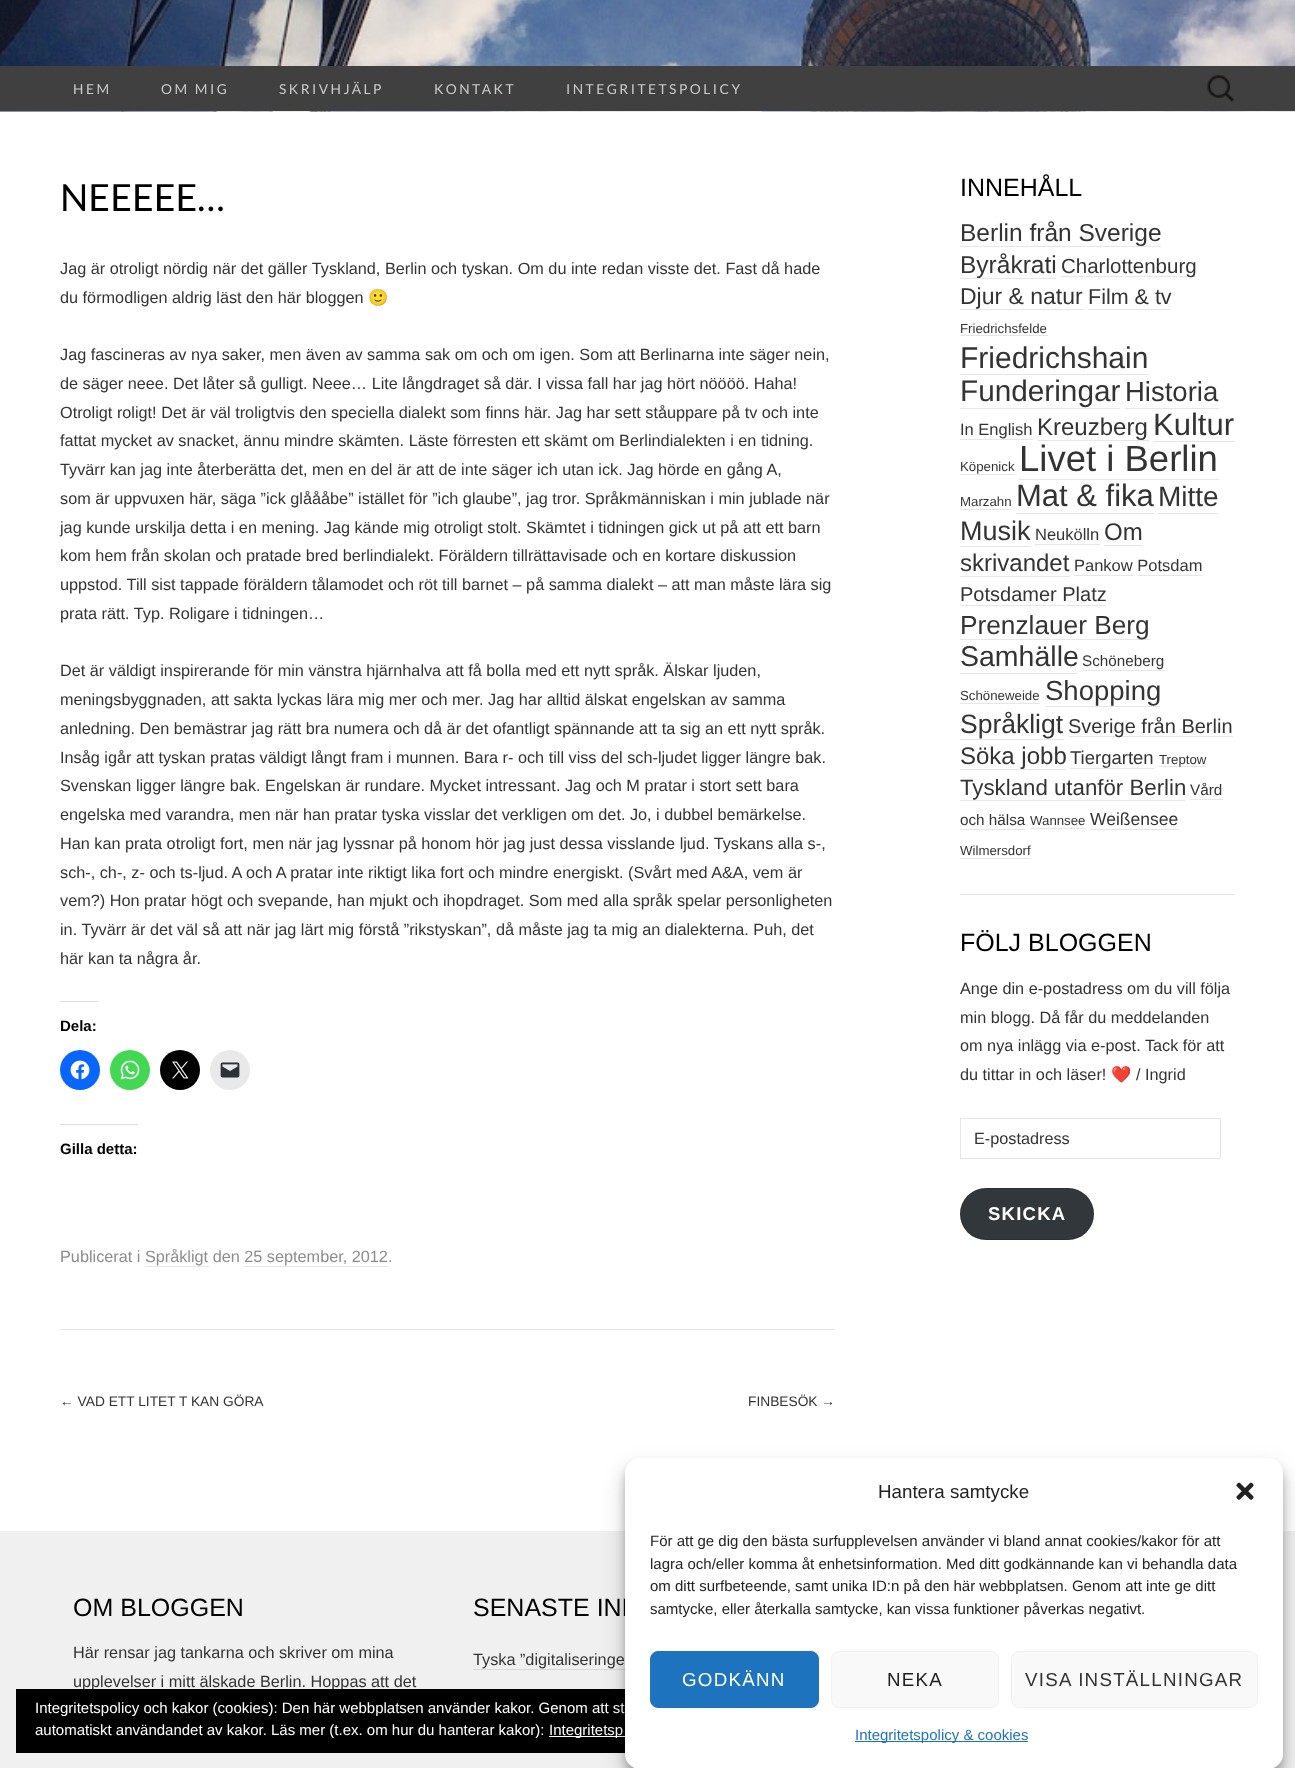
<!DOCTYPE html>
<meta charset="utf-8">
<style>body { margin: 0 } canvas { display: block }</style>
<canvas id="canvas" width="1295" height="1768"></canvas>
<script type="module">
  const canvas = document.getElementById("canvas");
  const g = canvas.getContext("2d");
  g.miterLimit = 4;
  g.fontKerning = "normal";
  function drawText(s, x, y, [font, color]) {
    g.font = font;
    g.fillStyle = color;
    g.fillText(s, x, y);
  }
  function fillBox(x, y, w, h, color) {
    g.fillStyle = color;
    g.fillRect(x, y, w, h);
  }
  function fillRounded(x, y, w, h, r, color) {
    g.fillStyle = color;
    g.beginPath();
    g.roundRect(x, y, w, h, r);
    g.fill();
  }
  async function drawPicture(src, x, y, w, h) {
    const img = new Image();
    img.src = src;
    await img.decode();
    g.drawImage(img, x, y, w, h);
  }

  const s1 = ["13.75px Lato", "#CCCCCC"];
  const s2 = ["37.5px Lato", "#000000"];
  const s3 = ["16.25px Liberation Sans", "#333333"];
  const s4 = ["16.25px Noto Color Emoji", "#333333"];
  const s5 = ["bold 15px Liberation Sans", "#000000"];
  const s6 = ["16.25px Liberation Sans", "#8C8C8C"];
  const s7 = ["13.75px Liberation Sans", "#333333"];
  const s8 = ["25px Liberation Sans", "#000000"];
  const s9 = ["24.5px Liberation Sans", "#333333"];
  const s10 = ["20.5px Liberation Sans", "#333333"];
  const s11 = ["23px Liberation Sans", "#333333"];
  const s12 = ["21.5px Liberation Sans", "#333333"];
  const s13 = ["13.25px Liberation Sans", "#333333"];
  const s14 = ["30px Liberation Sans", "#333333"];
  const s15 = ["29.75px Liberation Sans", "#333333"];
  const s16 = ["27.5px Liberation Sans", "#333333"];
  const s17 = ["16.5px Liberation Sans", "#333333"];
  const s18 = ["24px Liberation Sans", "#333333"];
  const s19 = ["31px Liberation Sans", "#333333"];
  const s20 = ["36.5px Liberation Sans", "#333333"];
  const s21 = ["28px Liberation Sans", "#333333"];
  const s22 = ["27px Liberation Sans", "#333333"];
  const s23 = ["20px Liberation Sans", "#333333"];
  const s24 = ["26.25px Liberation Sans", "#333333"];
  const s25 = ["28.5px Liberation Sans", "#333333"];
  const s26 = ["15.25px Liberation Sans", "#333333"];
  const s27 = ["26.5px Liberation Sans", "#333333"];
  const s28 = ["18.5px Liberation Sans", "#333333"];
  const s29 = ["22.25px Liberation Sans", "#333333"];
  const s30 = ["17.5px Liberation Sans", "#333333"];
  const s31 = ["bold 18.5px Liberation Sans", "#FFFFFF"];
  const s32 = ["15px Liberation Sans", "#FFFFFF"];
  const s33 = ["18.75px Liberation Sans", "#222222"];
  const s34 = ["15px Liberation Sans", "#222222"];
  const s35 = ["18.75px Liberation Sans", "#FFFFFF"];
  const s36 = ["18.75px Liberation Sans", "#333333"];
  const s37 = ["15px Liberation Sans", "#1E73BE"];

  fillBox(0, 0, 1295, 1768, "#FFFFFF");
  await drawPicture("pic1.png", 0, 0, 1295, 112);
  fillBox(0, 66, 1295, 45, "#404040");
  g.letterSpacing = "2.5px";
  drawText("HEM", 73, 94, s1);
  drawText("OM MIG", 161, 94, s1);
  drawText("SKRIVHJÄLP", 279, 94, s1);
  drawText("KONTAKT", 434, 94, s1);
  drawText("INTEGRITETSPOLICY", 566, 94, s1);
  await drawPicture("pic2.png", 1207, 75, 27, 27);
  fillBox(60, 1329, 775, 1, "#E6E6E6");
  g.letterSpacing = "0px";
  drawText("NEEEEE…", 60, 211, s2);
  drawText("Jag är otroligt nördig när det gäller Tyskland, Berlin och tyskan. Om du inte redan visste det. Fast då hade", 60, 274, s3);
  drawText("du förmodligen aldrig läst den här bloggen", 60, 303, s3);
  drawText("🙂", 368, 303, s4);
  drawText("Jag fascineras av nya saker, men även av samma sak om och om igen. Som att Berlinarna inte säger nein,", 60, 360, s3);
  drawText("de säger neee. Det låter så gulligt. Neee… Lite långdraget så där. I vissa fall har jag hört nöööö. Haha!", 60, 389, s3);
  drawText("Otroligt roligt! Det är väl troligtvis den speciella dialekt som finns här. Jag har sett ståuppare på tv och inte", 60, 418, s3);
  drawText("fattat mycket av snacket, ännu mindre skämten. Läste förresten ett skämt om Berlindialekten i en tidning.", 60, 446, s3);
  drawText("Tyvärr kan jag inte återberätta det, men en del är att de inte säger ich utan ick. Jag hörde en gång A,", 60, 475, s3);
  drawText("som är uppvuxen här, säga ”ick glåååbe” istället för ”ich glaube”, jag tror. Språkmänniskan i min jublade när", 60, 504, s3);
  drawText("jag kunde urskilja detta i en mening. Jag kände mig otroligt stolt. Skämtet i tidningen gick ut på att ett barn", 60, 533, s3);
  drawText("kom hem från skolan och pratade bred berlindialekt. Föräldern tillrättavisade och en kortare diskussion", 60, 561, s3);
  drawText("uppstod. Till sist tappade föräldern tålamodet och röt till barnet – på samma dialekt – att man måste lära sig", 60, 590, s3);
  drawText("prata rätt. Typ. Roligare i tidningen…", 60, 619, s3);
  drawText("Det är väldigt inspirerande för min vänstra hjärnhalva att få bolla med ett nytt språk. Älskar ljuden,", 60, 676, s3);
  drawText("meningsbyggnaden, att sakta lyckas lära mig mer och mer. Jag har alltid älskat engelskan av samma", 60, 705, s3);
  drawText("anledning. Den bemästrar jag rätt bra numera och då är det ofantligt spännande att ta sig an ett nytt språk.", 60, 734, s3);
  drawText("Insåg igår att tyskan pratas väldigt långt fram i munnen. Bara r- och till viss del sch-ljudet ligger längre bak.", 60, 763, s3);
  drawText("Svenskan ligger längre bak. Engelskan är rundare. Mycket intressant. Jag och M pratar i stort sett bara", 60, 791, s3);
  drawText("engelska med varandra, men när han pratar tyska visslar det verkligen om det. Jo, i dubbel bemärkelse.", 60, 820, s3);
  drawText("Han kan prata otroligt fort, men när jag lyssnar på honom hör jag just dessa visslande ljud. Tyskans alla s-,", 60, 849, s3);
  drawText("sch-, ch-, z- och ts-ljud. A och A pratar inte riktigt lika fort och mindre energiskt. (Svårt med A&A, vem är", 60, 878, s3);
  drawText("vem?) Hon pratar högt och svepande, han mjukt och ihopdraget. Som med alla språk spelar personligheten", 60, 906, s3);
  drawText("in. Tyvärr är det väl så att när jag lärt mig förstå ”rikstyskan”, då måste jag ta mig an dialekterna. Puh, det", 60, 935, s3);
  drawText("här kan ta några år.", 60, 964, s3);
  fillBox(60, 1001, 38, 1, "#DCDCDE");
  drawText("Dela:", 60, 1031, s5);
  g.fillStyle = "#0866FF";
  g.beginPath();
  g.arc(80, 1070, 20, 0, Math.PI * 2);
  g.fill();
  await drawPicture("pic3.png", 70, 1060, 20, 20);
  g.fillStyle = "#43D854";
  g.beginPath();
  g.arc(130, 1070, 20, 0, Math.PI * 2);
  g.fill();
  await drawPicture("pic4.png", 120, 1060, 20, 20);
  g.fillStyle = "#000000";
  g.beginPath();
  g.arc(180, 1070, 20, 0, Math.PI * 2);
  g.fill();
  await drawPicture("pic5.png", 172, 1061, 17, 18);
  g.fillStyle = "#E9E9E9";
  g.beginPath();
  g.arc(230, 1070, 20, 0, Math.PI * 2);
  g.fill();
  await drawPicture("pic6.png", 220, 1062, 20, 16);
  fillBox(60, 1124, 78, 1, "#DCDCDE");
  drawText("Gilla detta:", 60, 1154, s5);
  drawText("Publicerat i Språkligt den 25 september, 2012.", 60, 1262, s6);
  fillBox(145, 1266, 64, 1, "#E6E6E6");
  fillBox(244, 1266, 144, 1, "#E6E6E6");
  drawText("← VAD ETT LITET T KAN GÖRA", 60, 1406, s7);
  drawText("FINBESÖK →", 748, 1406, s7);
  fillBox(960, 894, 275, 1, "#E6E6E6");
  drawText("INNEHÅLL", 960, 196, s8);
  fillBox(960, 246, 201, 1, "#E6E6E6");
  drawText("Berlin från Sverige", 960, 241, s9);
  fillBox(960, 278, 96, 1, "#E6E6E6");
  drawText("Byråkrati", 960, 273, s9);
  fillBox(1061, 276, 135, 1, "#E6E6E6");
  drawText("Charlottenburg", 1061, 273, s10);
  drawText("Djur & natur", 960, 304, s11);
  fillBox(960, 309, 124, 1, "#E6E6E6");
  drawText("Film & tv", 1088, 304, s12);
  fillBox(1088, 309, 83, 1, "#E6E6E6");
  drawText("Friedrichsfelde", 960, 333, s13);
  fillBox(960, 335, 88, 1, "#E6E6E6");
  drawText("Friedrichshain", 960, 368, s14);
  fillBox(960, 374, 189, 1, "#E6E6E6");
  drawText("Funderingar", 960, 401, s15);
  fillBox(960, 408, 160, 1, "#E6E6E6");
  drawText("Historia", 1125, 401, s16);
  fillBox(1125, 408, 94, 1, "#E6E6E6");
  drawText("In English", 960, 435, s17);
  fillBox(960, 439, 73, 1, "#E6E6E6");
  drawText("Kreuzberg", 1037, 435, s18);
  fillBox(1038, 440, 111, 1, "#E6E6E6");
  drawText("Kultur", 1153, 435, s19);
  fillBox(1153, 441, 82, 1, "#E6E6E6");
  drawText("Köpenick", 960, 471, s13);
  fillBox(960, 474, 55, 1, "#E6E6E6");
  drawText("Livet i Berlin", 1019, 471, s20);
  fillBox(1019, 479, 200, 1, "#E6E6E6");
  drawText("Marzahn", 960, 506, s13);
  fillBox(960, 509, 51, 1, "#E6E6E6");
  drawText("Mat & fika", 1016, 506, s19);
  fillBox(1016, 513, 138, 1, "#E6E6E6");
  drawText("Mitte", 1158, 506, s21);
  fillBox(1158, 513, 60, 1, "#E6E6E6");
  drawText("Musik", 960, 540, s22);
  fillBox(960, 546, 71, 1, "#E6E6E6");
  drawText("Neukölln", 1035, 540, s17);
  fillBox(1035, 544, 65, 1, "#E6E6E6");
  drawText("Om", 1104, 540, s18);
  fillBox(1104, 545, 39, 1, "#E6E6E6");
  drawText("skrivandet", 960, 571, s18);
  fillBox(960, 576, 110, 1, "#E6E6E6");
  drawText("Pankow Potsdam", 1074, 571, s17);
  fillBox(1074, 575, 59, 1, "#E6E6E6");
  fillBox(1138, 575, 65, 1, "#E6E6E6");
  drawText("Potsdamer Platz", 960, 601, s23);
  fillBox(960, 605, 146, 1, "#E6E6E6");
  fillBox(960, 639, 190, 1, "#E6E6E6");
  drawText("Prenzlauer Berg", 960, 634, s24);
  drawText("Samhälle", 960, 666, s25);
  fillBox(960, 673, 118, 1, "#E6E6E6");
  drawText("Schöneberg", 1082, 666, s26);
  fillBox(1083, 670, 82, 1, "#E6E6E6");
  drawText("Schöneweide", 960, 700, s13);
  fillBox(960, 703, 80, 1, "#E6E6E6");
  drawText("Shopping", 1045, 700, s16);
  fillBox(1045, 706, 115, 1, "#E6E6E6");
  drawText("Språkligt", 960, 733, s27);
  fillBox(960, 739, 104, 1, "#E6E6E6");
  fillBox(1069, 736, 164, 1, "#E6E6E6");
  drawText("Sverige från Berlin", 1068, 733, s23);
  drawText("Söka jobb", 960, 764, s18);
  fillBox(960, 769, 106, 1, "#E6E6E6");
  drawText("Tiergarten", 1070, 764, s28);
  fillBox(1070, 768, 84, 1, "#E6E6E6");
  fillBox(1159, 766, 47, 1, "#E6E6E6");
  drawText("Treptow", 1159, 764, s13);
  drawText("Tyskland utanför Berlin", 960, 795, s29);
  fillBox(960, 800, 225, 1, "#E6E6E6");
  drawText("Vård", 1190, 795, s26);
  fillBox(1190, 799, 33, 1, "#E6E6E6");
  drawText("och hälsa", 960, 825, s26);
  fillBox(960, 829, 65, 1, "#E6E6E6");
  drawText("Wannsee", 1030, 825, s13);
  fillBox(1030, 828, 56, 1, "#E6E6E6");
  drawText("Weißensee", 1090, 825, s30);
  fillBox(1090, 829, 89, 1, "#E6E6E6");
  drawText("Wilmersdorf", 960, 855, s13);
  fillBox(960, 858, 71, 1, "#E6E6E6");
  drawText("FÖLJ BLOGGEN", 960, 951, s8);
  drawText("Ange din e-postadress om du vill följa", 960, 994, s3);
  drawText("min blogg. Då får du meddelanden", 960, 1023, s3);
  drawText("om nya inlägg via e-post. Tack för att", 960, 1051, s3);
  drawText("du tittar in och läser!", 960, 1080, s3);
  drawText("❤️", 1111, 1080, s4);
  drawText("/ Ingrid", 1136, 1080, s3);
  g.strokeStyle = "#E6E6E6";
  g.strokeRect(960.5, 1118.5, 260, 40);
  drawText("E-postadress", 974, 1144, s3);
  fillRounded(960, 1188, 134, 52, 26, "#32373C");
  g.beginPath();
  g.roundRect(960.5, 1188.5, 133, 51, 25.5);
  g.strokeStyle = "rgba(0, 0, 0, 0.1)";
  g.stroke();
  g.letterSpacing = "1.25px";
  drawText("SKICKA", 988, 1220, s31);
  fillBox(0, 1531, 1295, 237, "#F0F0F0");
  g.letterSpacing = "0px";
  drawText("OM BLOGGEN", 73, 1616, s8);
  drawText("Här rensar jag tankarna och skriver om mina", 73, 1658, s3);
  drawText("upplevelser i mitt älskade Berlin. Hoppas att det", 73, 1687, s3);
  drawText("SENASTE INL", 473, 1616, s8);
  drawText("Tyska ”digitaliseringe", 473, 1665, s3);
  fillBox(473, 1669, 152, 1, "#D8D8D8");
  fillBox(16, 1689, 609, 64, "#000000");
  drawText("Integritetspolicy och kakor (cookies): Den här webbplatsen använder kakor. Genom att st", 35, 1713, s32);
  drawText("automatiskt användandet av kakor. Läs mer (t.ex. om hur du hanterar kakor):", 35, 1735, s32);
  fillBox(549, 1736, 76, 1, "#FFFFFF");
  drawText("Integritetsp", 549, 1735, s32);
  g.fillStyle = "rgba(0, 0, 0, 0.23)";
  g.filter = "blur(4px)";
  g.beginPath();
  g.roundRect(625, 1465, 658, 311, 15);
  g.fill();
  g.filter = "none";
  g.fillStyle = "rgba(0, 0, 0, 0.19)";
  g.filter = "blur(12.5px)";
  g.beginPath();
  g.roundRect(625, 1470, 658, 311, 15);
  g.fill();
  g.filter = "none";
  fillRounded(625, 1458, 658, 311, 15, "#FFFFFF");
  drawText("Hantera samtycke", 878, 1498, s33);
  await drawPicture("pic7.png", 1236, 1482, 18, 18);
  drawText("För att ge dig den bästa surfupplevelsen använder vi bland annat cookies/kakor för att", 650, 1546, s34);
  drawText("lagra och/eller komma åt enhetsinformation. Med ditt godkännande kan vi behandla data", 650, 1569, s34);
  drawText("om ditt surfbeteende, samt unika ID:n på den här webbplatsen. Genom att inte ge ditt", 650, 1591, s34);
  drawText("samtycke, eller återkalla samtycke, kan vissa funktioner påverkas negativt.", 650, 1614, s34);
  g.fillStyle = "#1E73BE";
  g.beginPath();
  g.roundRect(650.5, 1651.5, 168, 56, 7.5);
  g.fill();
  g.strokeStyle = "#1E73BE";
  g.stroke();
  g.letterSpacing = "1.25px";
  drawText("GODKÄNN", 682, 1686, s35);
  g.fillStyle = "#F9F9F9";
  g.beginPath();
  g.roundRect(831.5, 1651.5, 167, 56, 7.5);
  g.fill();
  g.strokeStyle = "#F2F2F2";
  g.stroke();
  drawText("NEKA", 887, 1686, s33);
  g.fillStyle = "#F9F9F9";
  g.beginPath();
  g.roundRect(1011.5, 1651.5, 246, 56, 7.5);
  g.fill();
  g.stroke();
  drawText("VISA INSTÄLLNINGAR", 1025, 1686, s36);
  fillBox(855, 1741, 173, 1, "#1E73BE");
  g.letterSpacing = "0px";
  drawText("Integritetspolicy & cookies", 855, 1740, s37);
</script>
